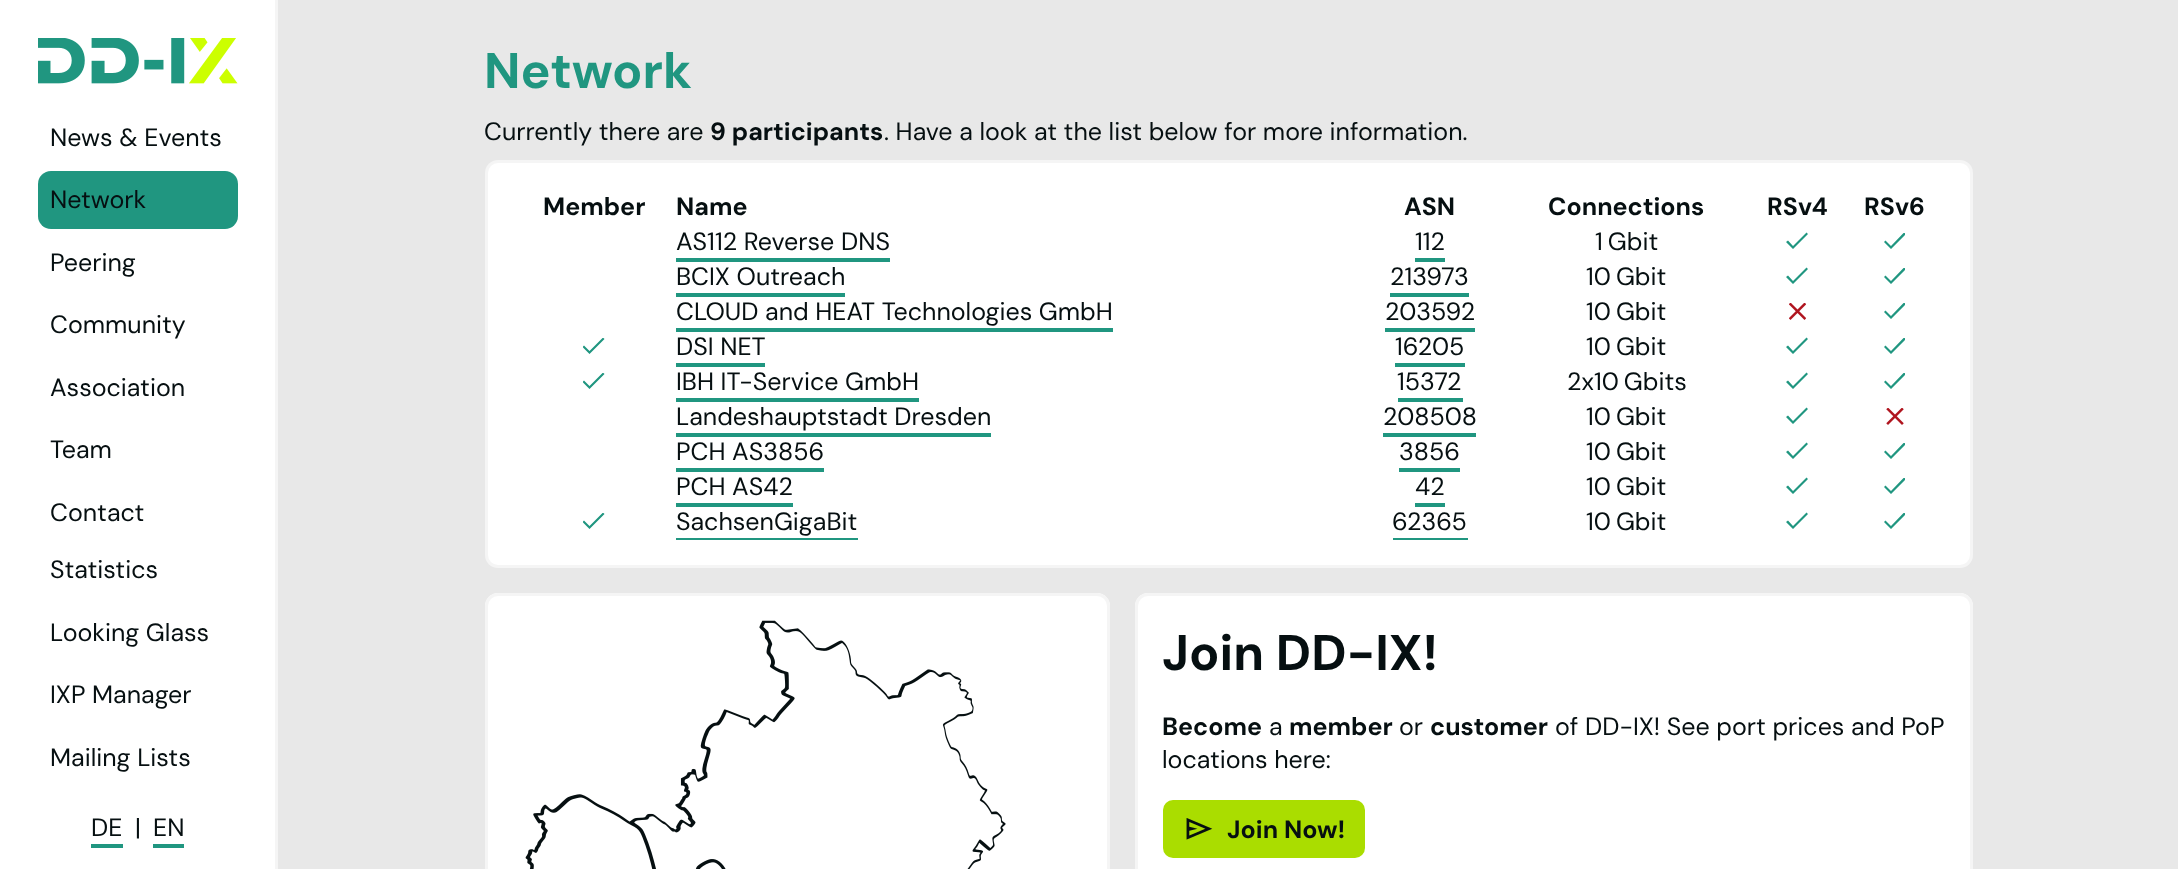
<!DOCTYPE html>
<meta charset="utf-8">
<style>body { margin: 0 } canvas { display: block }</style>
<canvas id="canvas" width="2178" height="869"></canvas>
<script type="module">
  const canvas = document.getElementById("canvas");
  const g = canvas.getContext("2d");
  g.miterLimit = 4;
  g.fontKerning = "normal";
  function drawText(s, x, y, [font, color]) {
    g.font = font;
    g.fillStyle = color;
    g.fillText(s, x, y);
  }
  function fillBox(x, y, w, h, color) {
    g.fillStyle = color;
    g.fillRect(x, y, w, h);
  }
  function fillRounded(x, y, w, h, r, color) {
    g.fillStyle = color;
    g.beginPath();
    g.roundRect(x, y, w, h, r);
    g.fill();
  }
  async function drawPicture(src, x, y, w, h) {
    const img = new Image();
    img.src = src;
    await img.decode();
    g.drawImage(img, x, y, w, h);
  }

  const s1 = ["25px DM Sans", "#060F11"];
  const s2 = ["bold 50px DM Sans", "#209680"];
  const s3 = ["bold 25px DM Sans", "#060F11"];
  const s4 = ["bold 50px DM Sans", "#060F11"];

  fillBox(0, 0, 2178, 869, "#E8E8E8");
  fillBox(0, 0, 275, 869, "#FFFFFF");
  fillBox(275, 0, 3, 869, "#F5F5F5");
  await drawPicture("pic1.png", 38, 38, 200, 46);
  drawText("News & Events", 50, 146, s1);
  fillRounded(38, 171, 200, 58, 13, "#209680");
  drawText("Network", 50, 208, s1);
  drawText("Peering", 50, 271, s1);
  drawText("Community", 50, 333, s1);
  drawText("Association", 50, 396, s1);
  drawText("Team", 50, 458, s1);
  drawText("Contact", 50, 521, s1);
  drawText("Statistics", 50, 578, s1);
  drawText("Looking Glass", 50, 641, s1);
  drawText("IXP Manager", 50, 703, s1);
  drawText("Mailing Lists", 50, 766, s1);
  fillBox(91, 844, 32, 4, "#209680");
  drawText("DE", 91, 836, s1);
  drawText("|", 135, 836, s1);
  fillBox(153, 844, 31, 4, "#209680");
  drawText("EN", 153, 836, s1);
  drawText("Network", 484, 88, s2);
  drawText("Currently there are", 484, 140, s1);
  drawText("9 participants", 710, 140, s3);
  drawText(". Have a look at the list below for more information.", 884, 140, s1);
  g.fillStyle = "#FFFFFF";
  g.beginPath();
  g.roundRect(486.5, 161.5, 1485, 405, 11.5);
  g.fill();
  g.strokeStyle = "#F5F5F5";
  g.lineWidth = 3;
  g.stroke();
  drawText("Member", 543, 215, s3);
  drawText("Name", 676, 215, s3);
  drawText("ASN", 1404, 215, s3);
  drawText("Connections", 1548, 215, s3);
  drawText("RSv4", 1767, 215, s3);
  drawText("RSv6", 1864, 215, s3);
  drawText("AS112 Reverse DNS", 676, 250, s1);
  fillBox(676, 258, 214, 4, "#209680");
  drawText("112", 1415, 250, s1);
  fillBox(1415, 258, 30, 4, "#209680");
  drawText("1 Gbit", 1595, 250, s1);
  g.fillStyle = "#209680";
  g.beginPath();
  g.moveTo(1793, 246);
  g.lineTo(1788, 240.5);
  g.lineTo(1786, 242);
  g.lineTo(1793, 249);
  g.lineTo(1808, 234);
  g.lineTo(1806.5, 232.5);
  g.closePath();
  g.fill();
  g.save();
  g.beginPath();
  g.rect(1884, 233, 21, 17);
  g.clip();
  g.beginPath();
  g.moveTo(1891, 246);
  g.lineTo(1885.5, 240.5);
  g.lineTo(1884, 242);
  g.lineTo(1891, 249);
  g.lineTo(1906, 234);
  g.lineTo(1904, 232.5);
  g.closePath();
  g.fill();
  g.restore();
  drawText("BCIX Outreach", 676, 285, s1);
  fillBox(676, 293, 169, 4, "#209680");
  drawText("213973", 1390, 285, s1);
  fillBox(1390, 293, 79, 4, "#209680");
  drawText("10 Gbit", 1586, 285, s1);
  g.fillStyle = "#209680";
  g.beginPath();
  g.moveTo(1793, 281);
  g.lineTo(1788, 275.5);
  g.lineTo(1786, 277);
  g.lineTo(1793, 284);
  g.lineTo(1808, 269);
  g.lineTo(1806.5, 267.5);
  g.closePath();
  g.fill();
  g.save();
  g.beginPath();
  g.rect(1884, 268, 21, 17);
  g.clip();
  g.beginPath();
  g.moveTo(1891, 281);
  g.lineTo(1885.5, 275.5);
  g.lineTo(1884, 277);
  g.lineTo(1891, 284);
  g.lineTo(1906, 269);
  g.lineTo(1904, 267.5);
  g.closePath();
  g.fill();
  g.restore();
  drawText("CLOUD and HEAT Technologies GmbH", 676, 320, s1);
  fillBox(676, 328, 437, 4, "#209680");
  drawText("203592", 1385, 320, s1);
  fillBox(1385, 328, 90, 4, "#209680");
  drawText("10 Gbit", 1586, 320, s1);
  await drawPicture("pic2.png", 1789, 303, 17, 17);
  g.save();
  g.beginPath();
  g.rect(1884, 303, 21, 17);
  g.clip();
  g.fillStyle = "#209680";
  g.beginPath();
  g.moveTo(1891, 316);
  g.lineTo(1885.5, 310.5);
  g.lineTo(1884, 312);
  g.lineTo(1891, 319);
  g.lineTo(1906, 304);
  g.lineTo(1904, 302.5);
  g.closePath();
  g.fill();
  g.restore();
  g.save();
  g.beginPath();
  g.rect(583, 338, 22, 17);
  g.clip();
  g.fillStyle = "#209680";
  g.beginPath();
  g.moveTo(589.5, 351);
  g.lineTo(584, 345.5);
  g.lineTo(582.5, 347);
  g.lineTo(589.5, 354);
  g.lineTo(604.5, 339);
  g.lineTo(603, 337.5);
  g.closePath();
  g.fill();
  g.restore();
  drawText("DSI NET", 676, 355, s1);
  fillBox(676, 363, 89, 4, "#209680");
  drawText("16205", 1395, 355, s1);
  fillBox(1395, 363, 70, 4, "#209680");
  drawText("10 Gbit", 1586, 355, s1);
  g.fillStyle = "#209680";
  g.beginPath();
  g.moveTo(1793, 351);
  g.lineTo(1788, 345.5);
  g.lineTo(1786, 347);
  g.lineTo(1793, 354);
  g.lineTo(1808, 339);
  g.lineTo(1806.5, 337.5);
  g.closePath();
  g.fill();
  g.save();
  g.beginPath();
  g.rect(1884, 338, 21, 17);
  g.clip();
  g.beginPath();
  g.moveTo(1891, 351);
  g.lineTo(1885.5, 345.5);
  g.lineTo(1884, 347);
  g.lineTo(1891, 354);
  g.lineTo(1906, 339);
  g.lineTo(1904, 337.5);
  g.closePath();
  g.fill();
  g.restore();
  g.save();
  g.beginPath();
  g.rect(583, 373, 22, 17);
  g.clip();
  g.beginPath();
  g.moveTo(589.5, 386);
  g.lineTo(584, 380.5);
  g.lineTo(582.5, 382);
  g.lineTo(589.5, 389);
  g.lineTo(604.5, 374);
  g.lineTo(603, 372.5);
  g.closePath();
  g.fill();
  g.restore();
  drawText("IBH IT-Service GmbH", 676, 390, s1);
  fillBox(676, 398, 243, 4, "#209680");
  drawText("15372", 1397, 390, s1);
  fillBox(1398, 398, 65, 4, "#209680");
  drawText("2x10 Gbits", 1567, 390, s1);
  g.fillStyle = "#209680";
  g.beginPath();
  g.moveTo(1793, 386);
  g.lineTo(1788, 380.5);
  g.lineTo(1786, 382);
  g.lineTo(1793, 389);
  g.lineTo(1808, 374);
  g.lineTo(1806.5, 372.5);
  g.closePath();
  g.fill();
  g.save();
  g.beginPath();
  g.rect(1884, 373, 21, 17);
  g.clip();
  g.beginPath();
  g.moveTo(1891, 386);
  g.lineTo(1885.5, 380.5);
  g.lineTo(1884, 382);
  g.lineTo(1891, 389);
  g.lineTo(1906, 374);
  g.lineTo(1904, 372.5);
  g.closePath();
  g.fill();
  g.restore();
  drawText("Landeshauptstadt Dresden", 676, 425, s1);
  fillBox(676, 433, 315, 4, "#209680");
  drawText("208508", 1383, 425, s1);
  fillBox(1383, 433, 93, 4, "#209680");
  drawText("10 Gbit", 1586, 425, s1);
  g.fillStyle = "#209680";
  g.beginPath();
  g.moveTo(1793, 421);
  g.lineTo(1788, 415.5);
  g.lineTo(1786, 417);
  g.lineTo(1793, 424);
  g.lineTo(1808, 409);
  g.lineTo(1806.5, 407.5);
  g.closePath();
  g.fill();
  await drawPicture("pic3.png", 1886, 408, 18, 17);
  drawText("PCH AS3856", 676, 460, s1);
  fillBox(676, 468, 148, 4, "#209680");
  drawText("3856", 1399, 460, s1);
  fillBox(1399, 468, 61, 4, "#209680");
  drawText("10 Gbit", 1586, 460, s1);
  g.fillStyle = "#209680";
  g.beginPath();
  g.moveTo(1793, 456);
  g.lineTo(1788, 450.5);
  g.lineTo(1786, 452);
  g.lineTo(1793, 459);
  g.lineTo(1808, 444);
  g.lineTo(1806.5, 442.5);
  g.closePath();
  g.fill();
  g.save();
  g.beginPath();
  g.rect(1884, 443, 21, 17);
  g.clip();
  g.beginPath();
  g.moveTo(1891, 456);
  g.lineTo(1885.5, 450.5);
  g.lineTo(1884, 452);
  g.lineTo(1891, 459);
  g.lineTo(1906, 444);
  g.lineTo(1904, 442.5);
  g.closePath();
  g.fill();
  g.restore();
  drawText("PCH AS42", 676, 495, s1);
  fillBox(676, 503, 117, 4, "#209680");
  drawText("42", 1415, 495, s1);
  fillBox(1415, 503, 30, 4, "#209680");
  drawText("10 Gbit", 1586, 495, s1);
  g.fillStyle = "#209680";
  g.beginPath();
  g.moveTo(1793, 491);
  g.lineTo(1788, 485.5);
  g.lineTo(1786, 487);
  g.lineTo(1793, 494);
  g.lineTo(1808, 479);
  g.lineTo(1806.5, 477.5);
  g.closePath();
  g.fill();
  g.save();
  g.beginPath();
  g.rect(1884, 478, 21, 17);
  g.clip();
  g.beginPath();
  g.moveTo(1891, 491);
  g.lineTo(1885.5, 485.5);
  g.lineTo(1884, 487);
  g.lineTo(1891, 494);
  g.lineTo(1906, 479);
  g.lineTo(1904, 477.5);
  g.closePath();
  g.fill();
  g.restore();
  g.save();
  g.beginPath();
  g.rect(583, 513, 22, 17);
  g.clip();
  g.beginPath();
  g.moveTo(589.5, 526);
  g.lineTo(584, 520.5);
  g.lineTo(582.5, 522);
  g.lineTo(589.5, 529);
  g.lineTo(604.5, 514);
  g.lineTo(603, 512.5);
  g.closePath();
  g.fill();
  g.restore();
  drawText("SachsenGigaBit", 676, 530, s1);
  fillBox(676, 538, 182, 2, "#209680");
  drawText("62365", 1392, 530, s1);
  fillBox(1393, 538, 75, 2, "#209680");
  drawText("10 Gbit", 1586, 530, s1);
  g.fillStyle = "#209680";
  g.beginPath();
  g.moveTo(1793, 526);
  g.lineTo(1788, 520.5);
  g.lineTo(1786, 522);
  g.lineTo(1793, 529);
  g.lineTo(1808, 514);
  g.lineTo(1806.5, 512.5);
  g.closePath();
  g.fill();
  g.save();
  g.beginPath();
  g.rect(1884, 513, 21, 17);
  g.clip();
  g.beginPath();
  g.moveTo(1891, 526);
  g.lineTo(1885.5, 520.5);
  g.lineTo(1884, 522);
  g.lineTo(1891, 529);
  g.lineTo(1906, 514);
  g.lineTo(1904, 512.5);
  g.closePath();
  g.fill();
  g.restore();
  g.fillStyle = "#FFFFFF";
  g.beginPath();
  g.moveTo(498, 593);
  g.lineTo(1097, 593);
  g.bezierCurveTo(1104, 593, 1110, 599, 1110, 606);
  g.lineTo(1110, 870);
  g.lineTo(485, 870);
  g.lineTo(485, 606);
  g.bezierCurveTo(485, 599, 491, 593, 498, 593);
  g.closePath();
  g.fill();
  g.beginPath();
  g.roundRect(486.5, 594.5, 622, 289, 11.5);
  g.stroke();
  await drawPicture("pic4.png", 525, 620, 481, 249);
  g.beginPath();
  g.moveTo(1148, 593);
  g.lineTo(1960, 593);
  g.bezierCurveTo(1967, 593, 1973, 599, 1973, 606);
  g.lineTo(1973, 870);
  g.lineTo(1135, 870);
  g.lineTo(1135, 606);
  g.bezierCurveTo(1135, 599, 1141, 593, 1148, 593);
  g.closePath();
  g.fill();
  g.beginPath();
  g.roundRect(1136.5, 594.5, 835, 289, 11.5);
  g.stroke();
  drawText("Join DD-IX!", 1162, 670, s4);
  drawText("Become", 1162, 735, s3);
  drawText("a", 1269, 735, s1);
  drawText("member", 1289, 735, s3);
  drawText("or", 1399, 735, s1);
  drawText("customer", 1430, 735, s3);
  drawText("of DD-IX! See port prices and PoP", 1555, 735, s1);
  drawText("locations here:", 1162, 768, s1);
  fillRounded(1163, 800, 202, 58, 10, "#AADD00");
  await drawPicture("pic5.png", 1186, 818, 27, 22);
  drawText("Join Now!", 1227, 838, s3);
</script>
